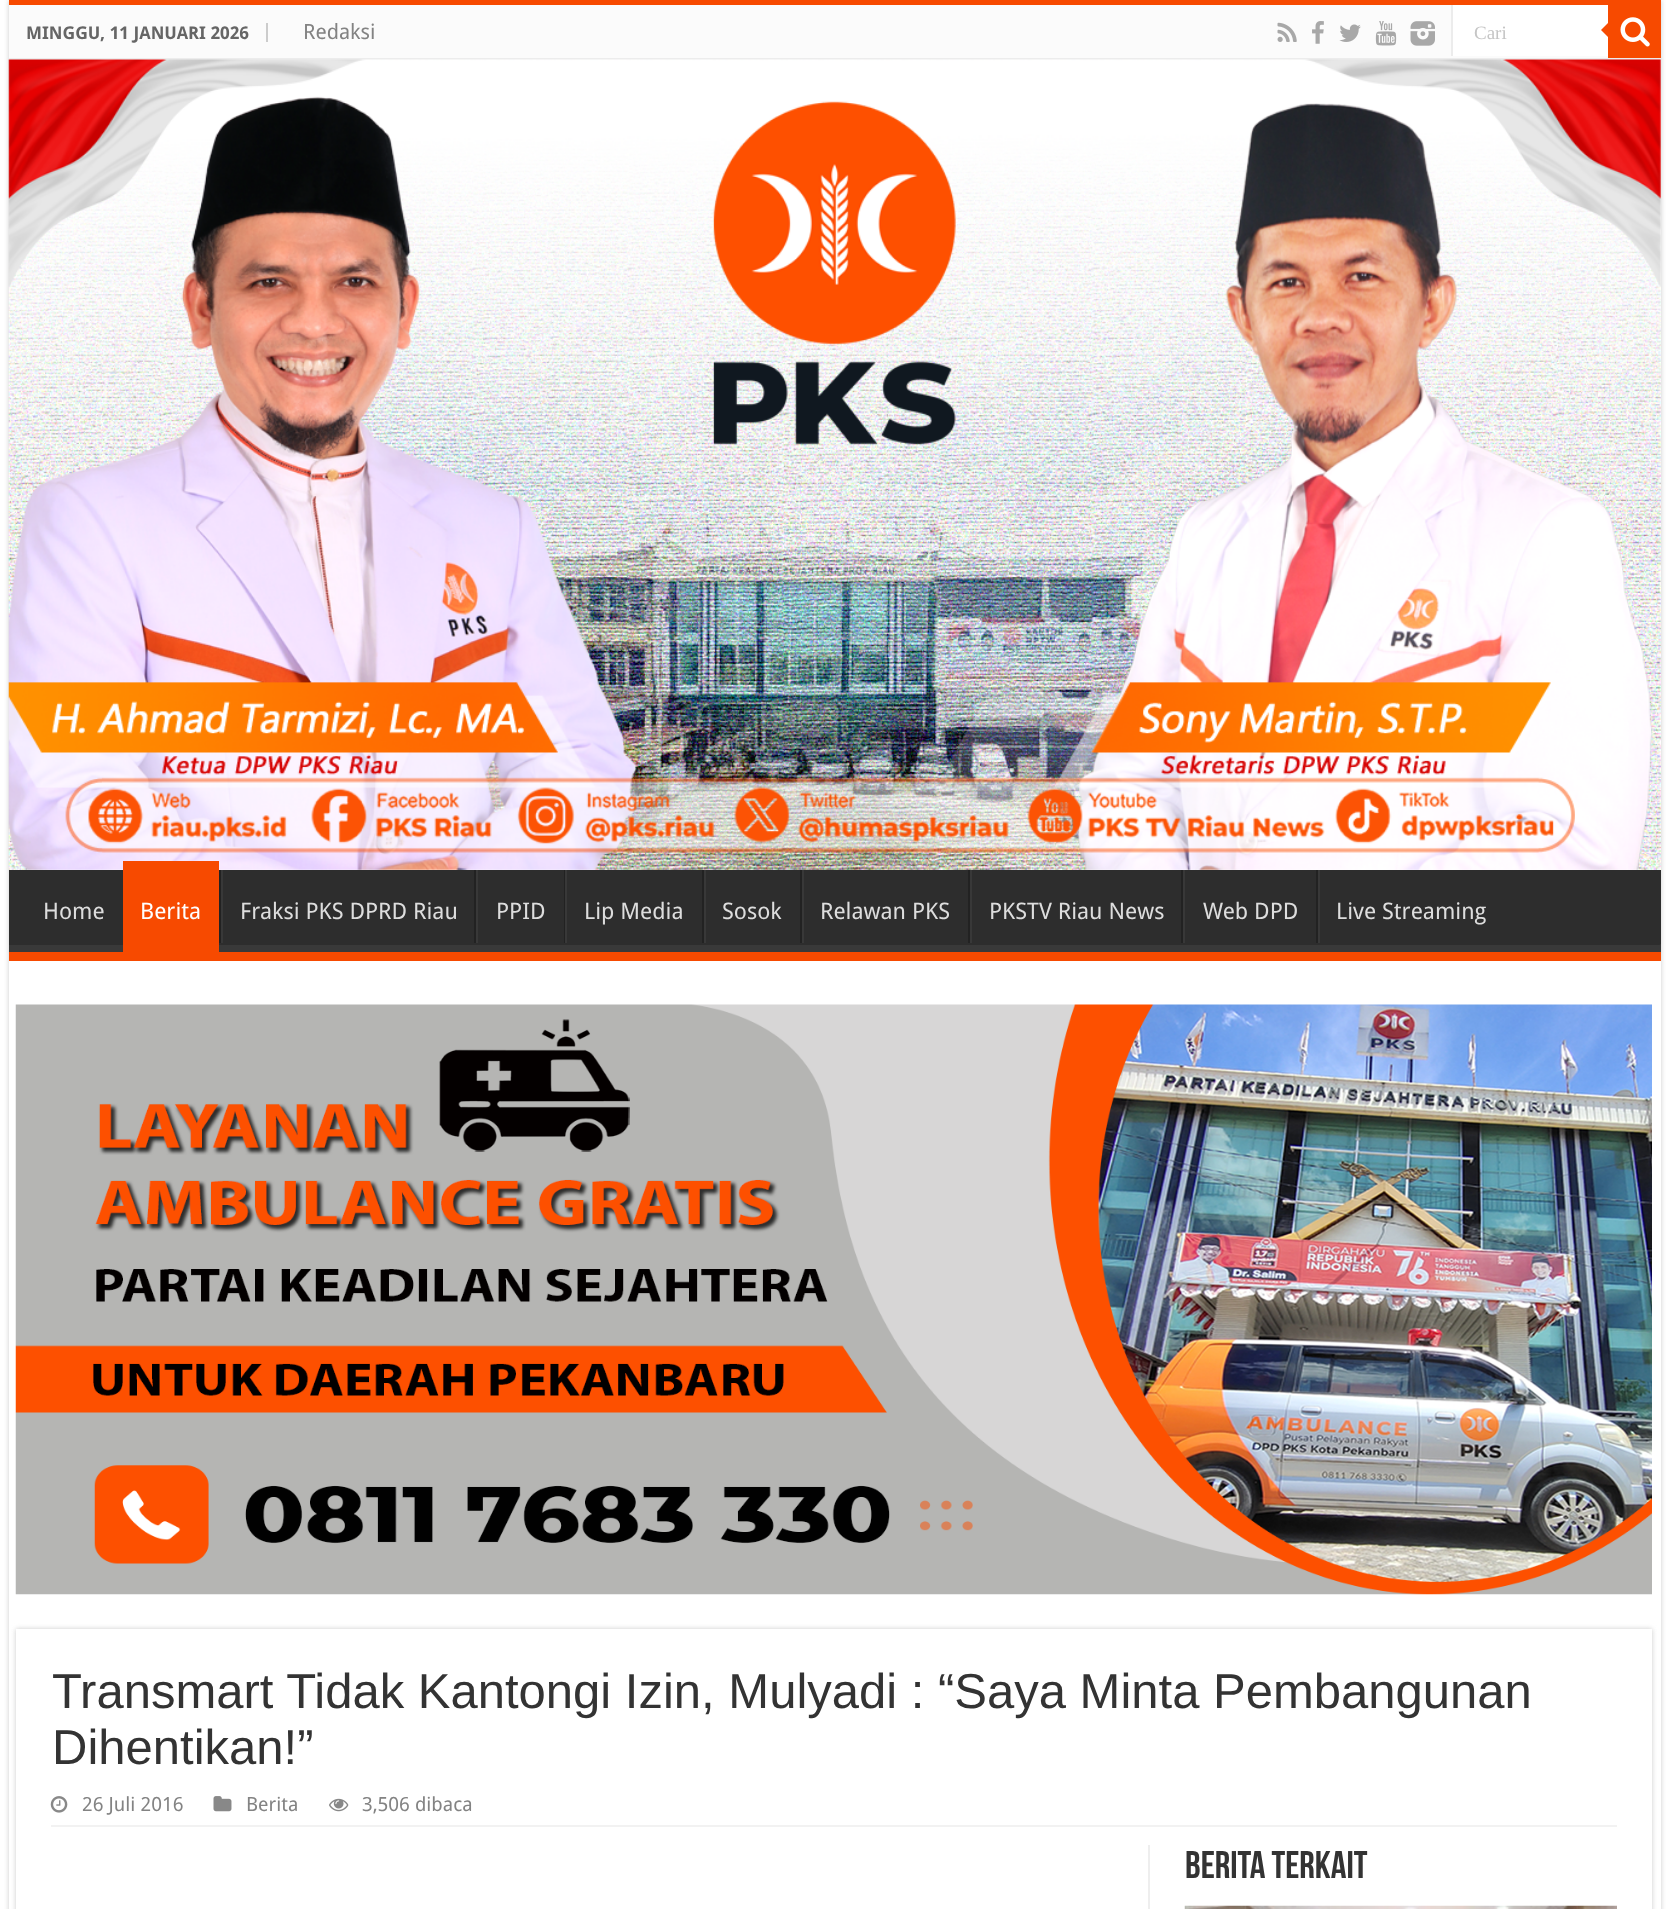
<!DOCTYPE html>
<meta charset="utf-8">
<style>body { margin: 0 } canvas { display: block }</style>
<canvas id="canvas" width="1668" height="1909"></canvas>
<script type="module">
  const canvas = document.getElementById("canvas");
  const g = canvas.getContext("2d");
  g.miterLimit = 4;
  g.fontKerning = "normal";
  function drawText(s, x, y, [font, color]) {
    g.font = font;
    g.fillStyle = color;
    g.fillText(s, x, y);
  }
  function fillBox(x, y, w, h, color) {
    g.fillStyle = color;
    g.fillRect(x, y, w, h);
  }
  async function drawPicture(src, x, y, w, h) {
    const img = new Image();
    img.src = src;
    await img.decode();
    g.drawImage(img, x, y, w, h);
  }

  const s1 = ["bold 17.5px Droid Sans", "#666666"];
  const s2 = ["21px Droid Sans", "#838383"];
  const s3 = ["19px Liberation Serif", "#C5C5C5"];
  const s4 = ["22.75px Droid Sans", "#DDDDDD"];
  const s5 = ["22.75px Droid Sans", "#FFFFFF"];
  const s6 = ["49px Liberation Sans", "#333333"];
  const s7 = ["19.5px Droid Sans", "#838383"];
  const s8 = ["bold 38.5px Bebas Neue", "#333333"];

  fillBox(0, 0, 1668, 1909, "#FFFFFF");
  g.fillStyle = "#CACACA";
  g.filter = "blur(2.5px)";
  g.beginPath();
  g.rect(9, 0, 1652, 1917);
  g.fill();
  g.filter = "none";
  fillBox(9, 60, 1652, 1849, "#FFFFFF");
  fillBox(9, 0, 1652, 5, "#F74A00");
  fillBox(9, 5, 1599, 53, "#FBFBFB");
  fillBox(9, 58, 1652, 2, "#ECECEC");
  fillBox(266, 23, 2, 19, "#CCCCCC");
  drawText("MINGGU, 11 JANUARI 2026", 26, 39, s1);
  drawText("Redaksi", 303, 39, s2);
  await drawPicture("pic1.png", 1277, 22, 20, 20);
  await drawPicture("pic2.png", 1312, 21, 12, 23);
  await drawPicture("pic3.png", 1339, 24, 22, 18);
  await drawPicture("pic4.png", 1375, 21, 22, 25);
  await drawPicture("pic5.png", 1410, 21, 25, 25);
  fillBox(1453, 5, 155, 51, "#FFFFFF");
  fillBox(1451, 5, 2, 51, "#ECECEC");
  drawText("Cari", 1474, 39, s3);
  fillBox(1608, 5, 53, 53, "#F74A00");
  await drawPicture("pic6.png", 1620, 17, 30, 30);
  g.beginPath();
  g.moveTo(1608, 23);
  g.lineTo(1608, 37);
  g.lineTo(1601, 30);
  g.closePath();
  g.fill();
  await drawPicture("pic7.png", 8, 59, 1653, 811);
  fillBox(9, 870, 1652, 75, "#2D2D2D");
  g.save();
  g.beginPath();
  g.rect(9, 870, 1652, 82);
  g.clip();
  g.fillStyle = "#393939";
  g.beginPath();
  g.moveTo(-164, 696);
  g.lineTo(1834, 696);
  g.lineTo(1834, 1125);
  g.lineTo(-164, 1125);
  g.closePath();
  g.moveTo(7, 859);
  g.lineTo(1659, 859);
  g.bezierCurveTo(1660, 859, 1661, 860, 1661, 861);
  g.lineTo(1661, 943);
  g.bezierCurveTo(1661, 944, 1660, 945, 1659, 945);
  g.lineTo(7, 945);
  g.bezierCurveTo(6, 945, 5, 944, 5, 943);
  g.lineTo(5, 861);
  g.bezierCurveTo(5, 860, 6, 859, 7, 859);
  g.closePath();
  g.fill("evenodd");
  g.restore();
  fillBox(9, 952, 1652, 9, "#F74A00");
  drawText("Home", 43, 919, s4);
  fillBox(123, 861, 96, 91, "#F74A00");
  drawText("Berita", 140, 919, s5);
  fillBox(219, 870, 2, 73, "#222222");
  fillBox(221, 870, 2, 73, "#383838");
  drawText("Fraksi PKS DPRD Riau", 240, 919, s4);
  fillBox(474, 870, 2, 73, "#222222");
  fillBox(476, 870, 2, 73, "#383838");
  drawText("PPID", 496, 919, s4);
  fillBox(564, 870, 1, 73, "#222222");
  fillBox(565, 870, 2, 73, "#383838");
  drawText("Lip Media", 584, 919, s4);
  fillBox(702, 870, 2, 73, "#222222");
  fillBox(704, 870, 2, 73, "#383838");
  drawText("Sosok", 722, 919, s4);
  fillBox(800, 870, 2, 73, "#222222");
  fillBox(802, 870, 2, 73, "#383838");
  drawText("Relawan PKS", 820, 919, s4);
  fillBox(968, 870, 2, 73, "#222222");
  fillBox(970, 870, 2, 73, "#383838");
  drawText("PKSTV Riau News", 989, 919, s4);
  fillBox(1181, 870, 2, 73, "#222222");
  fillBox(1183, 870, 2, 73, "#383838");
  drawText("Web DPD", 1203, 919, s4);
  fillBox(1316, 870, 2, 73, "#222222");
  fillBox(1318, 870, 2, 73, "#383838");
  drawText("Live Streaming", 1336, 919, s4);
  await drawPicture("pic8.png", 15, 1004, 1637, 591);
  g.fillStyle = "#CACACA";
  g.filter = "blur(2.5px)";
  g.beginPath();
  g.rect(16, 1629, 1636, 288);
  g.fill();
  g.filter = "none";
  fillBox(16, 1629, 1636, 280, "#FFFFFF");
  drawText("Transmart Tidak Kantongi Izin, Mulyadi : “Saya Minta Pembangunan", 52, 1708, s6);
  drawText("Dihentikan!”", 52, 1764, s6);
  fillBox(51, 1825, 1566, 2, "#F2F2F2");
  await drawPicture("pic9.png", 50, 1796, 18, 17);
  drawText("26 Juli 2016", 82, 1811, s7);
  await drawPicture("pic10.png", 213, 1796, 19, 16);
  drawText("Berita", 246, 1811, s7);
  await drawPicture("pic11.png", 329, 1798, 20, 14);
  drawText("3,506 dibaca", 362, 1811, s7);
  fillBox(1148, 1845, 2, 64, "#EEEEEE");
  drawText("Berita Terkait", 1185, 1878, s8);
  await drawPicture("pic12.png", 1184, 1905, 433, 4);
</script>
